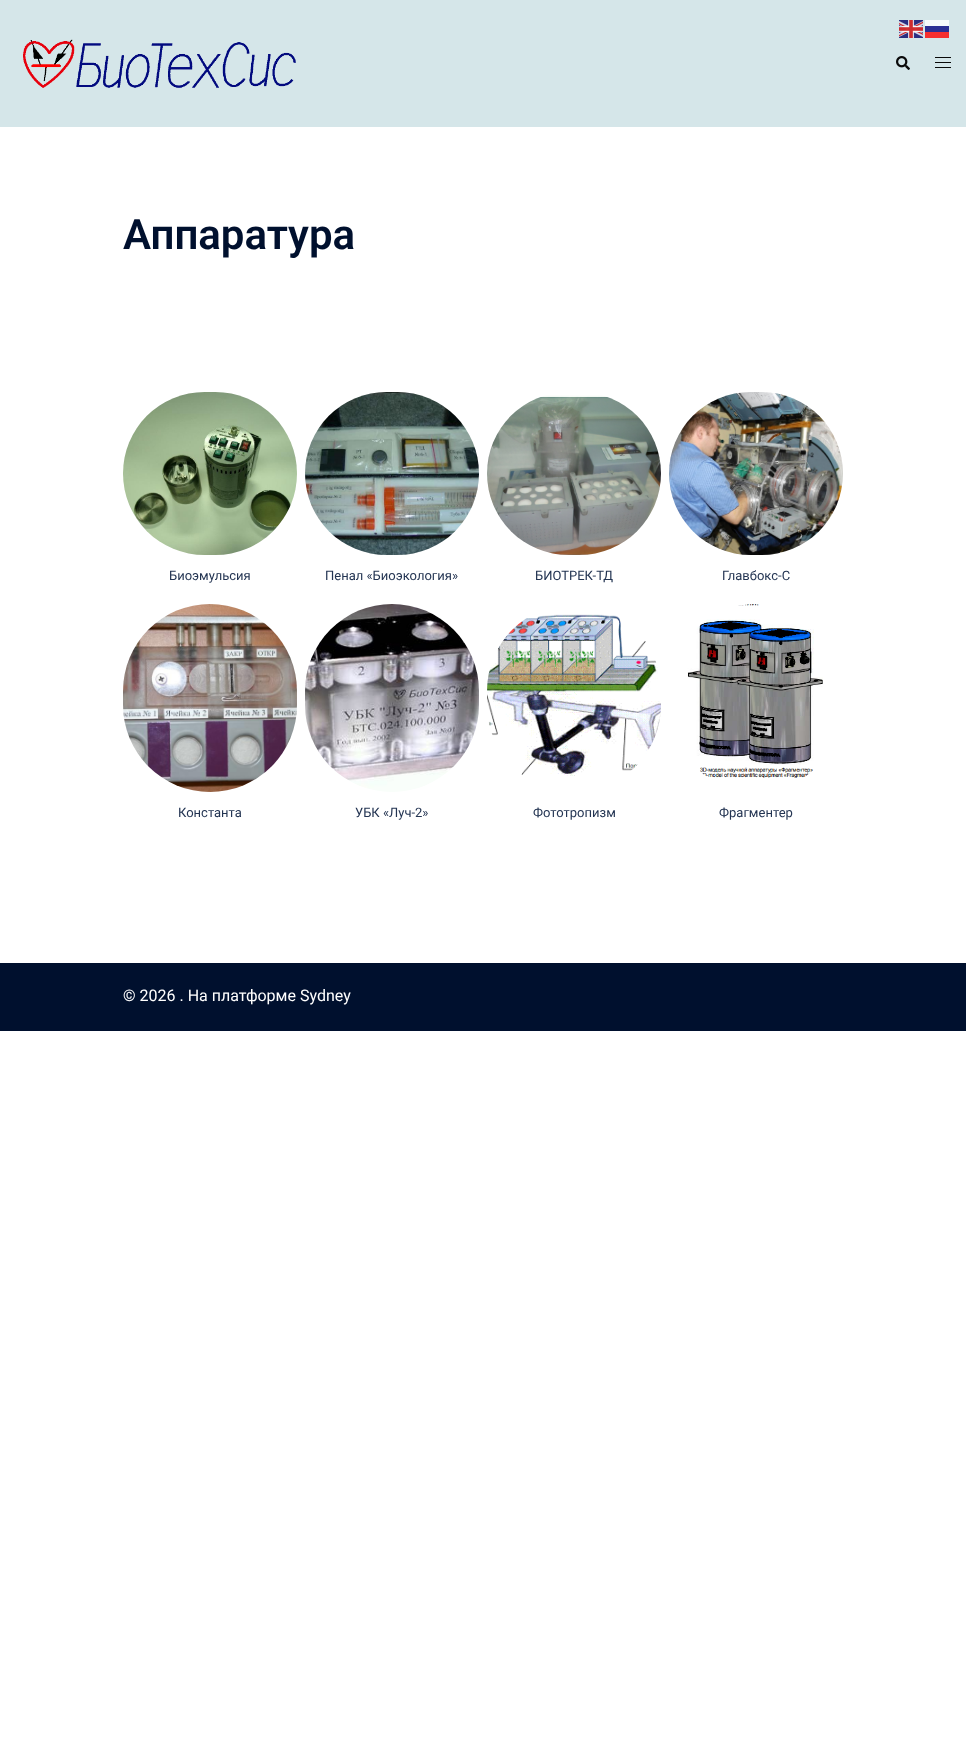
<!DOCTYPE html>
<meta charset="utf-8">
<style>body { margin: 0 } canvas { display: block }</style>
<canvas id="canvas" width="966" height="1760"></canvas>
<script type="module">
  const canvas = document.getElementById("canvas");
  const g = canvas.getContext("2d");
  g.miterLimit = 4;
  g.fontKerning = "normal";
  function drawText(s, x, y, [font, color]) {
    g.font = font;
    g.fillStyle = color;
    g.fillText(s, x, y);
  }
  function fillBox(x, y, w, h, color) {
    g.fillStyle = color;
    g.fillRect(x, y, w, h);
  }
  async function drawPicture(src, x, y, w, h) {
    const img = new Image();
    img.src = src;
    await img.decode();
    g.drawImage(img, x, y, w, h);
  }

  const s1 = ["600 42px Roboto", "#00102E"];
  const s2 = ["13px Roboto", "#233452"];
  const s3 = ["16px Roboto", "#FFFFFF"];

  fillBox(0, 0, 966, 1760, "#FFFFFF");
  fillBox(0, 0, 966, 127, "#D5E6E9");
  await drawPicture("pic1.png", 899, 20, 24, 18);
  fillBox(925, 20, 24, 6, "#F7FAFB");
  fillBox(925, 26, 24, 6, "#2B2F93");
  fillBox(925, 32, 24, 6, "#F62F2F");
  await drawPicture("pic2.png", 23, 39, 273, 49);
  await drawPicture("pic3.png", 896, 56, 14, 14);
  fillBox(935, 57, 16, 1, "#0A0A0A");
  fillBox(935, 62, 16, 1, "#0A0A0A");
  fillBox(935, 67, 16, 1, "#0A0A0A");
  drawText("Аппаратура", 123, 249, s1);
  await drawPicture("pic4.png", 123, 392, 174, 163);
  drawText("Биоэмульсия", 169, 580, s2);
  await drawPicture("pic5.png", 305, 392, 174, 163);
  drawText("Пенал «Биоэкология»", 325, 580, s2);
  await drawPicture("pic6.png", 487, 395, 174, 160);
  drawText("БИОТРЕК-ТД", 535, 580, s2);
  await drawPicture("pic7.png", 669, 392, 174, 163);
  drawText("Главбокс-С", 722, 580, s2);
  await drawPicture("pic8.png", 123, 604, 174, 188);
  drawText("Константа", 178, 817, s2);
  await drawPicture("pic9.png", 305, 604, 174, 188);
  drawText("УБК «Луч-2»", 355, 817, s2);
  await drawPicture("pic10.png", 487, 614, 174, 162);
  drawText("Фототропизм", 533, 817, s2);
  await drawPicture("pic11.png", 687, 604, 136, 174);
  drawText("Фрагментер", 719, 817, s2);
  fillBox(0, 963, 966, 68, "#00102E");
  drawText("© 2026 . На платформе Sydney", 123, 1001, s3);
</script>
